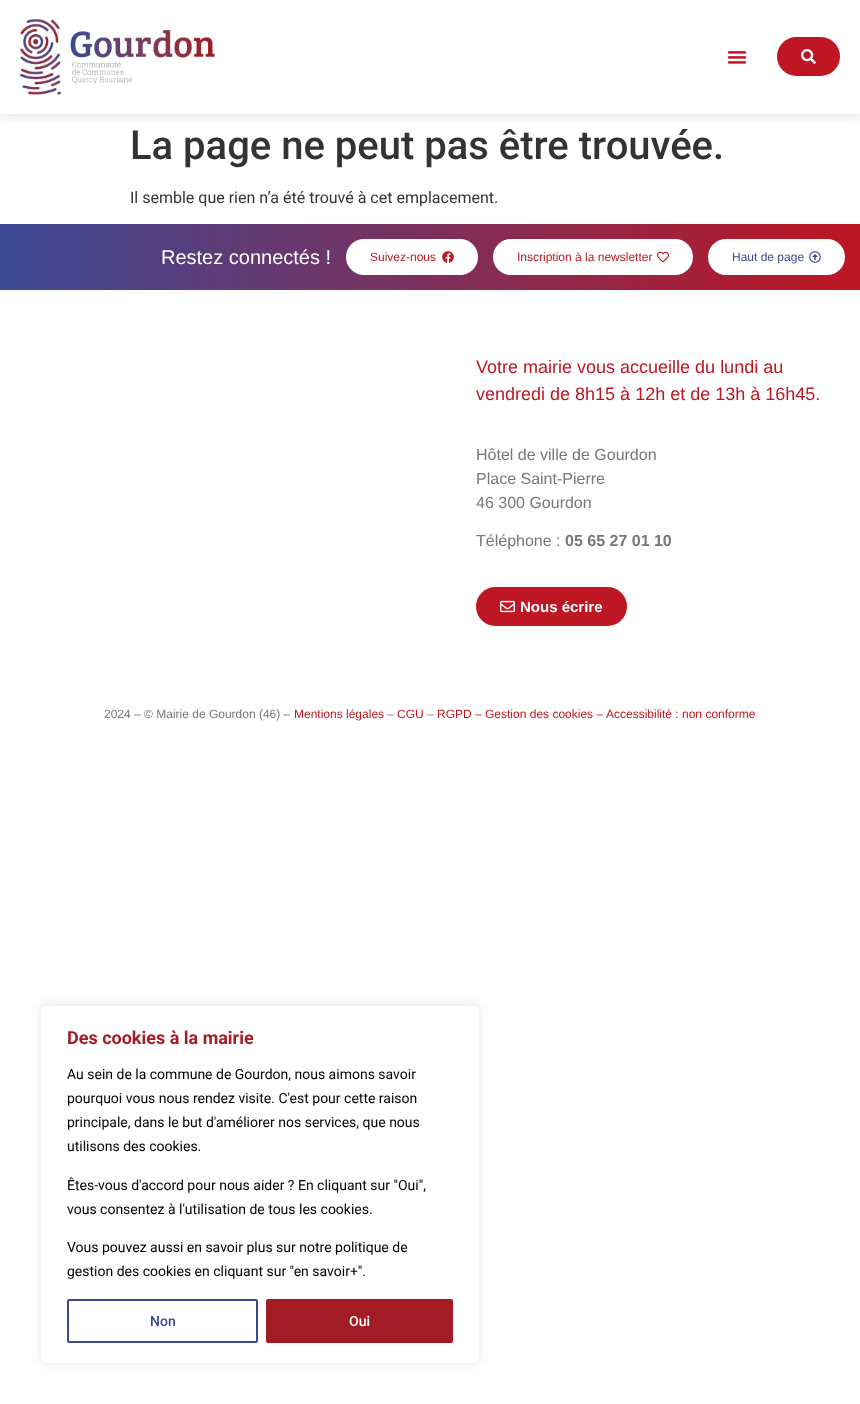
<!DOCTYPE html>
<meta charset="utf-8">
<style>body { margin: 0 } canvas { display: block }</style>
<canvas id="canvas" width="860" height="1404"></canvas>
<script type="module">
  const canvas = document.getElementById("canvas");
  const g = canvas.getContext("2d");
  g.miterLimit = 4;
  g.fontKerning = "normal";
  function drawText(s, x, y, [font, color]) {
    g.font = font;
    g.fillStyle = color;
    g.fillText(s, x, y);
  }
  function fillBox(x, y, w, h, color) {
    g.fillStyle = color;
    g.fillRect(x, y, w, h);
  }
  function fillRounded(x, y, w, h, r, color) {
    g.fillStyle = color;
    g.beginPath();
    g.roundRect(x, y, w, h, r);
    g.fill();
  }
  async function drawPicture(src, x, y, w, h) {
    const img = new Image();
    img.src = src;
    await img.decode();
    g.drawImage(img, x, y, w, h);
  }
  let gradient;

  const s1 = ["500 40px Roboto", "#333333"];
  const s2 = ["16px Roboto", "#333333"];
  const s3 = ["20px Liberation Sans", "#FFFFFF"];
  const s4 = ["12px Liberation Sans", "#BE1622"];
  const s5 = ["12px Liberation Sans", "#3B4995"];
  const s6 = ["18px Liberation Sans", "#BE1622"];
  const s7 = ["16px Liberation Sans", "#777777"];
  const s8 = ["bold 16px Liberation Sans", "#777777"];
  const s9 = ["bold 15px Liberation Sans", "#FFFFFF"];
  const s10 = ["12px Liberation Sans", "#777777"];
  const s11 = ["bold 18px Roboto", "#A21C26"];
  const s12 = ["14px Roboto", "#000000"];
  const s13 = ["500 14px Roboto", "#3B4995"];
  const s14 = ["500 14px Roboto", "#FFFFFF"];

  fillBox(0, 0, 860, 1404, "#FFFFFF");
  g.save();
  g.beginPath();
  g.rect(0, 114, 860, 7);
  g.clip();
  g.fillStyle = "rgba(0, 0, 0, 0.5)";
  g.filter = "blur(10px)";
  g.beginPath();
  g.rect(-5, -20, 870, 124);
  g.fill();
  g.filter = "none";
  g.restore();
  await drawPicture("pic1.png", 16, 16, 199, 82);
  await drawPicture("pic2.png", 727, 51, 20, 13);
  fillRounded(777, 37, 63, 39, 19.5, "#BE1622");
  await drawPicture("pic3.png", 801, 49, 15, 15);
  drawText("La page ne peut pas être trouvée.", 130, 159, s1);
  drawText("Il semble que rien n’a été trouvé à cet emplacement.", 130, 203, s2);
  gradient = g.createLinearGradient(0, 257, 860, 257);
  gradient.addColorStop(0, "#3B4995");
  gradient.addColorStop(1, "#BE1622");
  g.fillStyle = gradient;
  g.fillRect(0, 224, 860, 66);
  drawText("Restez connectés !", 161, 264, s3);
  fillRounded(346, 239, 132, 36, 18, "#FFFFFF");
  drawText("Suivez-nous", 370, 261, s4);
  await drawPicture("pic4.png", 442, 251, 12, 12);
  fillRounded(493, 239, 200, 36, 18, "#FFFFFF");
  drawText("Inscription à la newsletter", 517, 261, s4);
  await drawPicture("pic5.png", 657, 251, 12, 12);
  fillRounded(708, 239, 137, 36, 18, "#FFFFFF");
  drawText("Haut de page", 732, 261, s5);
  await drawPicture("pic6.png", 809, 251, 12, 12);
  drawText("Votre mairie vous accueille du lundi au", 476, 373, s6);
  drawText("vendredi de 8h15 à 12h et de 13h à 16h45.", 476, 400, s6);
  drawText("Hôtel de ville de Gourdon", 476, 460, s7);
  drawText("Place Saint-Pierre", 476, 484, s7);
  drawText("46 300 Gourdon", 476, 508, s7);
  drawText("Téléphone :", 476, 546, s7);
  drawText("05 65 27 01 10", 565, 546, s8);
  fillRounded(476, 587, 151, 39, 19.5, "#BE1622");
  await drawPicture("pic7.png", 500, 600, 15, 13);
  drawText("Nous écrire", 520, 612, s9);
  drawText("2024 – © Mairie de Gourdon (46) –", 104, 718, s10);
  drawText("Mentions légales", 294, 718, s4);
  drawText("–", 387, 718, s10);
  drawText("CGU", 397, 718, s4);
  drawText("–", 427, 718, s10);
  drawText("RGPD – Gestion des cookies –", 437, 718, s4);
  drawText("Accessibilité : non conforme", 606, 718, s4);
  g.fillStyle = "rgba(172, 171, 171, 0.3)";
  g.filter = "blur(5px)";
  g.beginPath();
  g.roundRect(40, 1004, 440, 359, 6);
  g.fill();
  g.filter = "none";
  g.fillStyle = "#FFFFFF";
  g.beginPath();
  g.roundRect(40.5, 1005.5, 439, 358, 5.5);
  g.fill();
  g.strokeStyle = "#F4F4F4";
  g.stroke();
  drawText("Des cookies à la mairie", 67, 1044, s11);
  drawText("Au sein de la commune de Gourdon, nous aimons savoir", 67, 1079, s12);
  drawText("pourquoi vous nous rendez visite. C'est pour cette raison", 67, 1103, s12);
  drawText("principale, dans le but d'améliorer nos services, que nous", 67, 1127, s12);
  drawText("utilisons des cookies.", 67, 1151, s12);
  drawText("Êtes-vous d'accord pour nous aider ? En cliquant sur \"Oui\",", 67, 1190, s12);
  drawText("vous consentez à l'utilisation de tous les cookies.", 67, 1214, s12);
  drawText("Vous pouvez aussi en savoir plus sur notre politique de", 67, 1252, s12);
  drawText("gestion des cookies en cliquant sur \"en savoir+\".", 67, 1276, s12);
  g.beginPath();
  g.roundRect(68, 1300, 189, 42, 1);
  g.strokeStyle = "#3B4995";
  g.lineWidth = 2;
  g.stroke();
  drawText("Non", 150, 1326, s13);
  g.fillStyle = "#A21C26";
  g.beginPath();
  g.roundRect(267, 1300, 185, 42, 1);
  g.fill();
  g.strokeStyle = "#A21C26";
  g.stroke();
  drawText("Oui", 349, 1326, s14);
</script>
